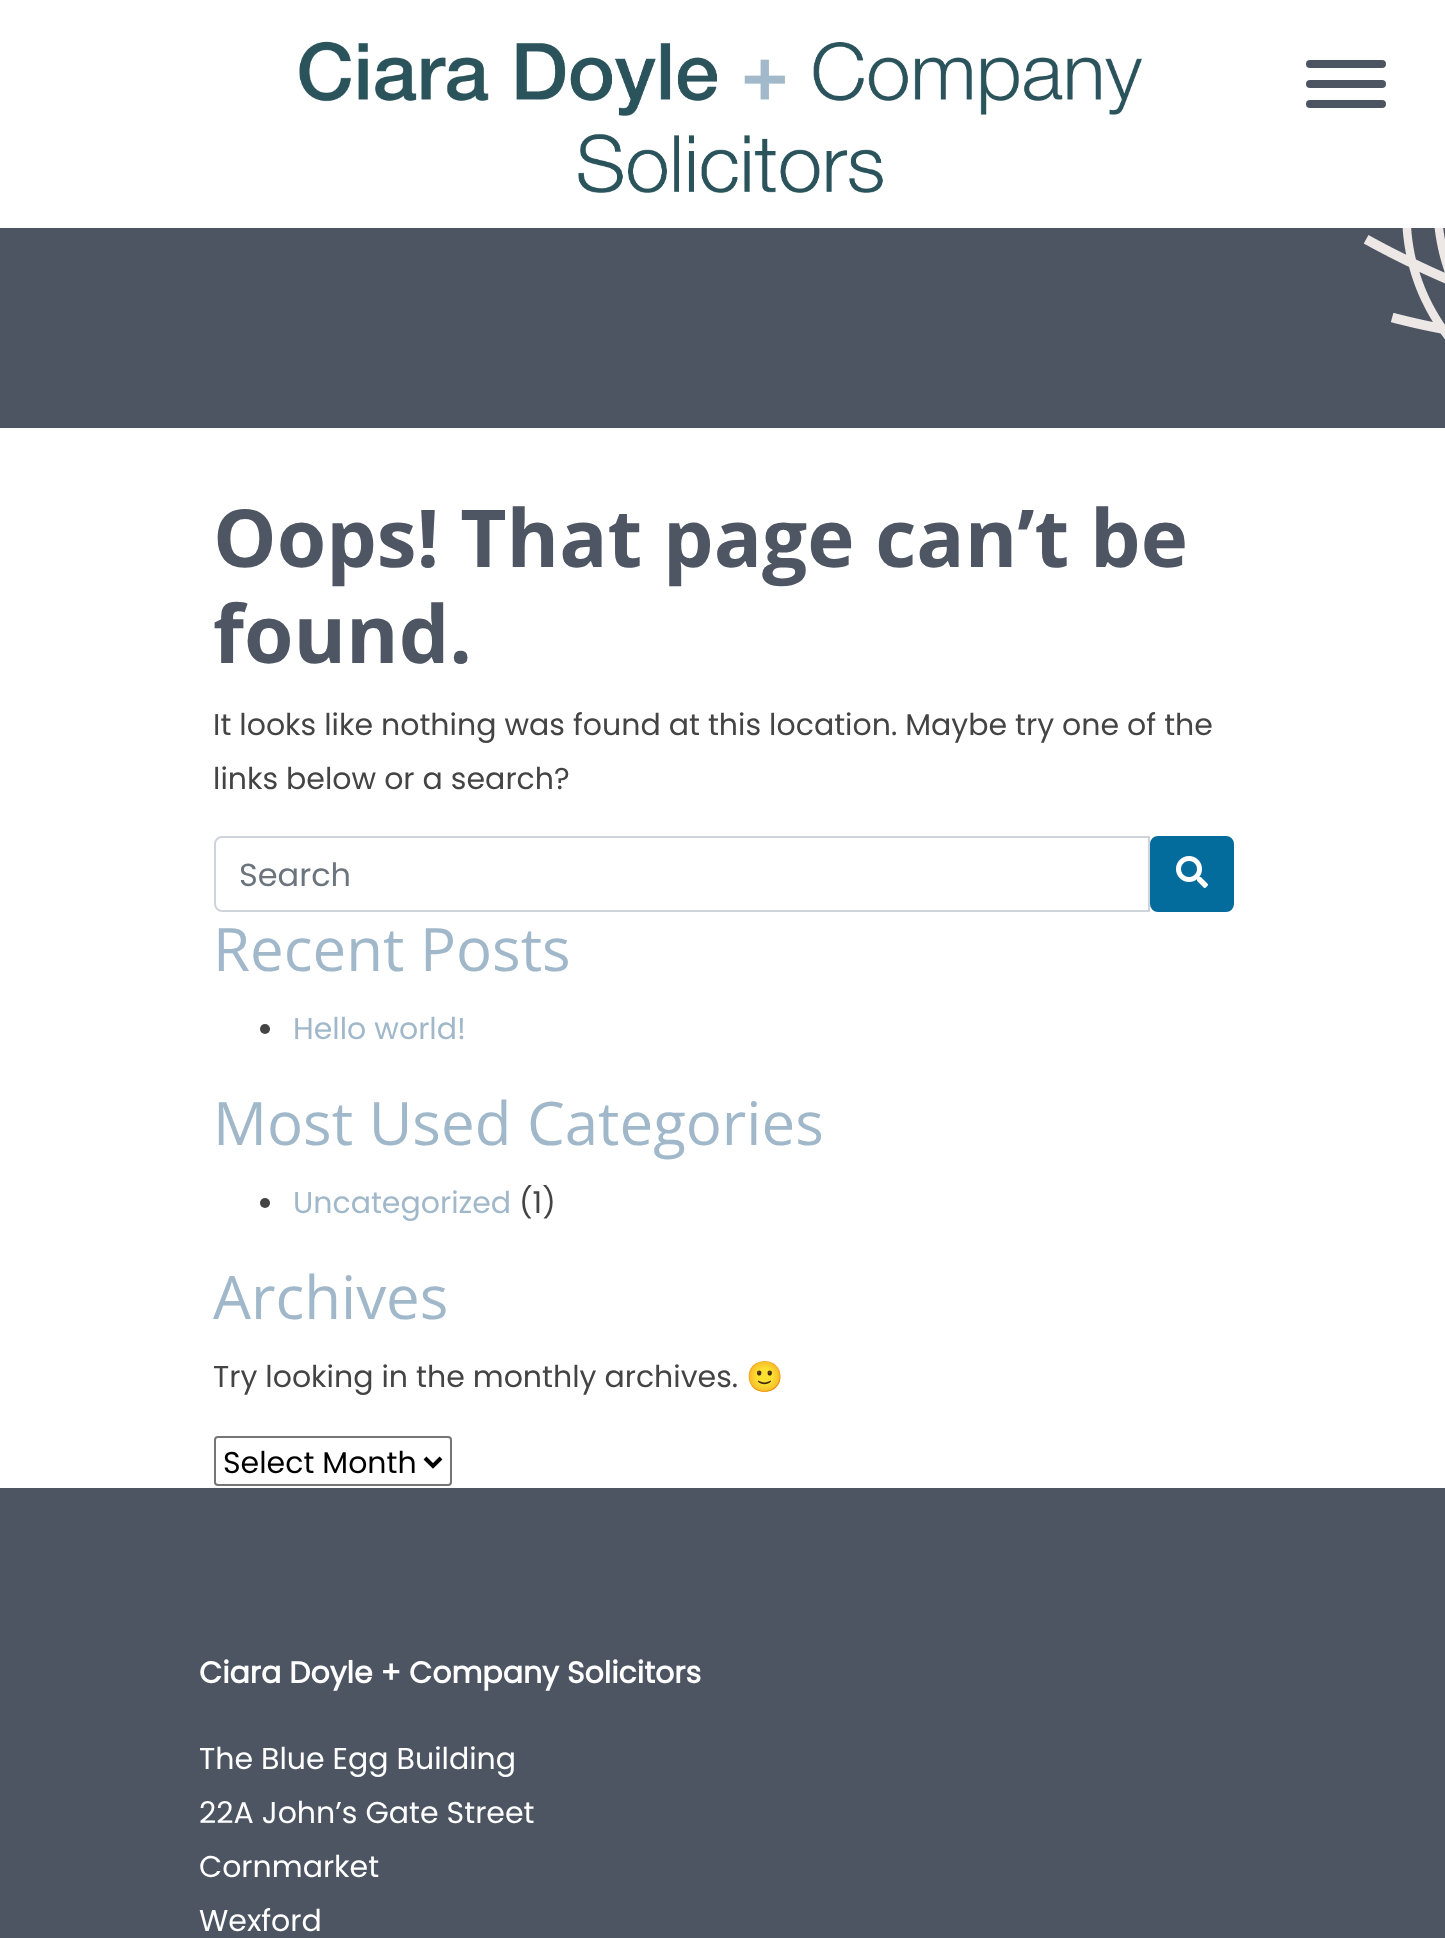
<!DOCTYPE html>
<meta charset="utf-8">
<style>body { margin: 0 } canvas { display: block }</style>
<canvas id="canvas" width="1445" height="1938"></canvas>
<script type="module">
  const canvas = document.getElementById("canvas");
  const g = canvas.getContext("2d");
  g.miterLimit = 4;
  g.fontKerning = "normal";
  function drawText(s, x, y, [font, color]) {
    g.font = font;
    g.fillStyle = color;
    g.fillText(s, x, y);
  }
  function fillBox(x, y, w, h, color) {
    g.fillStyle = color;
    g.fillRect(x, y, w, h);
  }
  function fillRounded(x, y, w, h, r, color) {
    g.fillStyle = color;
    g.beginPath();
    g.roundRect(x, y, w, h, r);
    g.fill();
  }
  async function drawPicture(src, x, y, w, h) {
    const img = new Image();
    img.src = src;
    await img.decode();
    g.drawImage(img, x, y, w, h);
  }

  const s1 = ["bold 80px Open Sans", "#4E5563"];
  const s2 = ["30px Poppins", "#444444"];
  const s3 = ["32px Poppins", "#6C757D"];
  const s4 = ["60px Open Sans", "#A0B8C9"];
  const s5 = ["30px Poppins", "#A0B8C9"];
  const s6 = ["30px Noto Color Emoji", "#444444"];
  const s7 = ["30px Poppins", "#000000"];
  const s8 = ["bold 30px Poppins", "#FFFFFF"];
  const s9 = ["30px Poppins", "#FFFFFF"];

  fillBox(0, 0, 1445, 1938, "#FFFFFF");
  await drawPicture("pic1.png", 299, 41, 843, 152);
  fillRounded(1306, 80, 80, 8, 4, "#4D5563");
  fillRounded(1306, 60, 80, 8, 4, "#4D5563");
  fillRounded(1306, 100, 80, 8, 4, "#4D5563");
  await drawPicture("pic2.png", 0, 228, 1445, 200);
  drawText("Oops! That page can’t be", 213, 567, s1);
  drawText("found.", 213, 663, s1);
  drawText("It looks like nothing was found at this location. Maybe try one of the", 213, 735, s2);
  drawText("links below or a search?", 213, 789, s2);
  g.beginPath();
  g.roundRect(215, 837, 934, 74, [7, 0, 0, 7]);
  g.strokeStyle = "#CED4DA";
  g.lineWidth = 2;
  g.stroke();
  drawText("Search", 239, 886, s3);
  g.fillStyle = "#046B9D";
  g.beginPath();
  g.roundRect(1151, 837, 82, 74, 7);
  g.fill();
  g.strokeStyle = "#046B9D";
  g.stroke();
  await drawPicture("pic3.png", 1176, 856, 32, 32);
  drawText("Recent Posts", 213, 971, s4);
  g.fillStyle = "#444444";
  g.beginPath();
  g.arc(265, 1029, 5, 0, Math.PI * 2);
  g.fill();
  drawText("Hello world!", 293, 1039, s5);
  drawText("Most Used Categories", 213, 1145, s4);
  g.fillStyle = "#444444";
  g.beginPath();
  g.arc(265, 1203, 5, 0, Math.PI * 2);
  g.fill();
  drawText("Uncategorized", 293, 1213, s5);
  drawText("(1)", 519, 1213, s2);
  drawText("Archives", 213, 1319, s4);
  drawText("Try looking in the monthly archives.", 213, 1387, s2);
  drawText("🙂", 746, 1387, s6);
  g.beginPath();
  g.roundRect(215, 1437, 236, 48, 3);
  g.strokeStyle = "#767676";
  g.stroke();
  g.beginPath();
  g.moveTo(425, 1458);
  g.lineTo(433, 1466);
  g.lineTo(441, 1458);
  g.strokeStyle = "#000000";
  g.lineWidth = 4;
  g.stroke();
  drawText("Select Month", 223, 1473, s7);
  fillBox(0, 1488, 1445, 450, "#4D5563");
  drawText("Ciara Doyle + Company Solicitors", 199, 1683, s8);
  drawText("The Blue Egg Building", 199, 1769, s9);
  drawText("22A John’s Gate Street", 199, 1823, s9);
  drawText("Cornmarket", 199, 1877, s9);
  drawText("Wexford", 199, 1931, s9);
</script>
